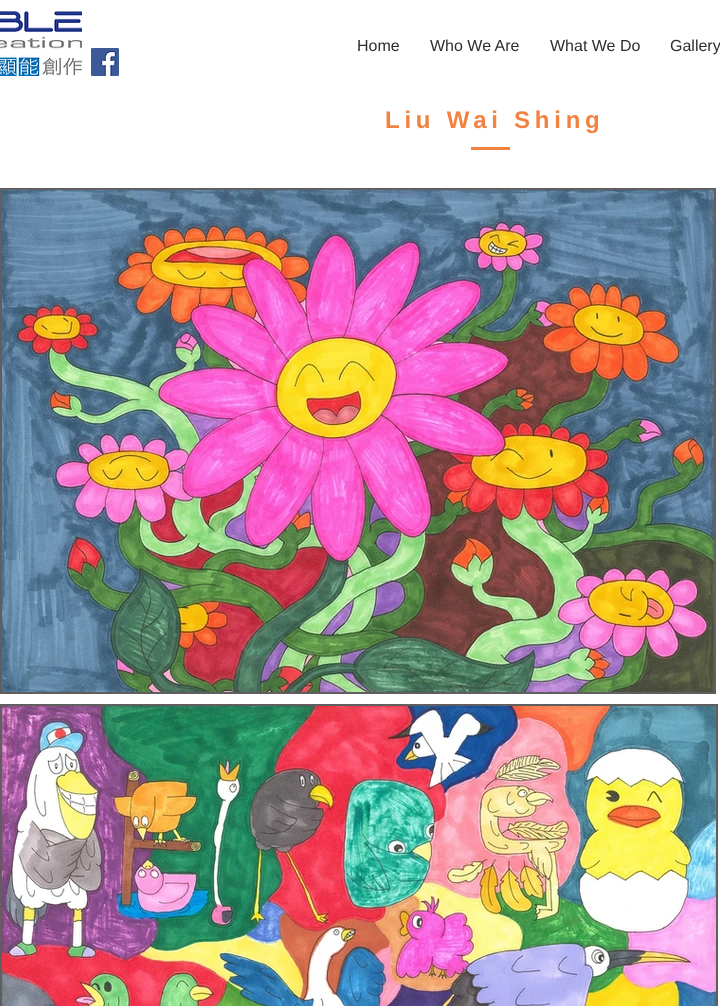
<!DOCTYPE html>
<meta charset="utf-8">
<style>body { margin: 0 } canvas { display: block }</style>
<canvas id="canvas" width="720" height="1006"></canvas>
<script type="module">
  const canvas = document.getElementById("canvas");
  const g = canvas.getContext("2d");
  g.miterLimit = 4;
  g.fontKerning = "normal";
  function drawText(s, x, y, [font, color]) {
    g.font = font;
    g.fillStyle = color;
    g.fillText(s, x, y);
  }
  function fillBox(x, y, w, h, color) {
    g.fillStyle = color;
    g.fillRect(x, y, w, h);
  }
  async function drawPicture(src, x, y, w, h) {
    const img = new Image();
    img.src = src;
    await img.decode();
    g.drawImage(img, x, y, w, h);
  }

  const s1 = ["16px Liberation Sans", "#2F2E2E"];
  const s2 = ["bold 24px Liberation Sans", "#F28241"];

  fillBox(0, 0, 720, 1006, "#FFFFFF");
  await drawPicture("pic1.png", 0, 11, 82, 65);
  await drawPicture("pic2.png", 91, 48, 28, 28);
  drawText("Home", 357, 51, s1);
  drawText("Who We Are", 430, 51, s1);
  drawText("What We Do", 550, 51, s1);
  drawText("Gallery", 670, 51, s1);
  g.letterSpacing = "4.75px";
  drawText("Liu Wai Shing", 385, 128, s2);
  fillBox(471, 147, 39, 3, "#F28241");
  g.strokeStyle = "#605E5E";
  g.lineWidth = 2;
  g.strokeRect(1, 189, 714, 504);
  await drawPicture("pic3.png", 2, 190, 712, 502);
  g.strokeRect(1, 705, 716, 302);
  await drawPicture("pic4.png", 2, 706, 714, 300);
</script>
